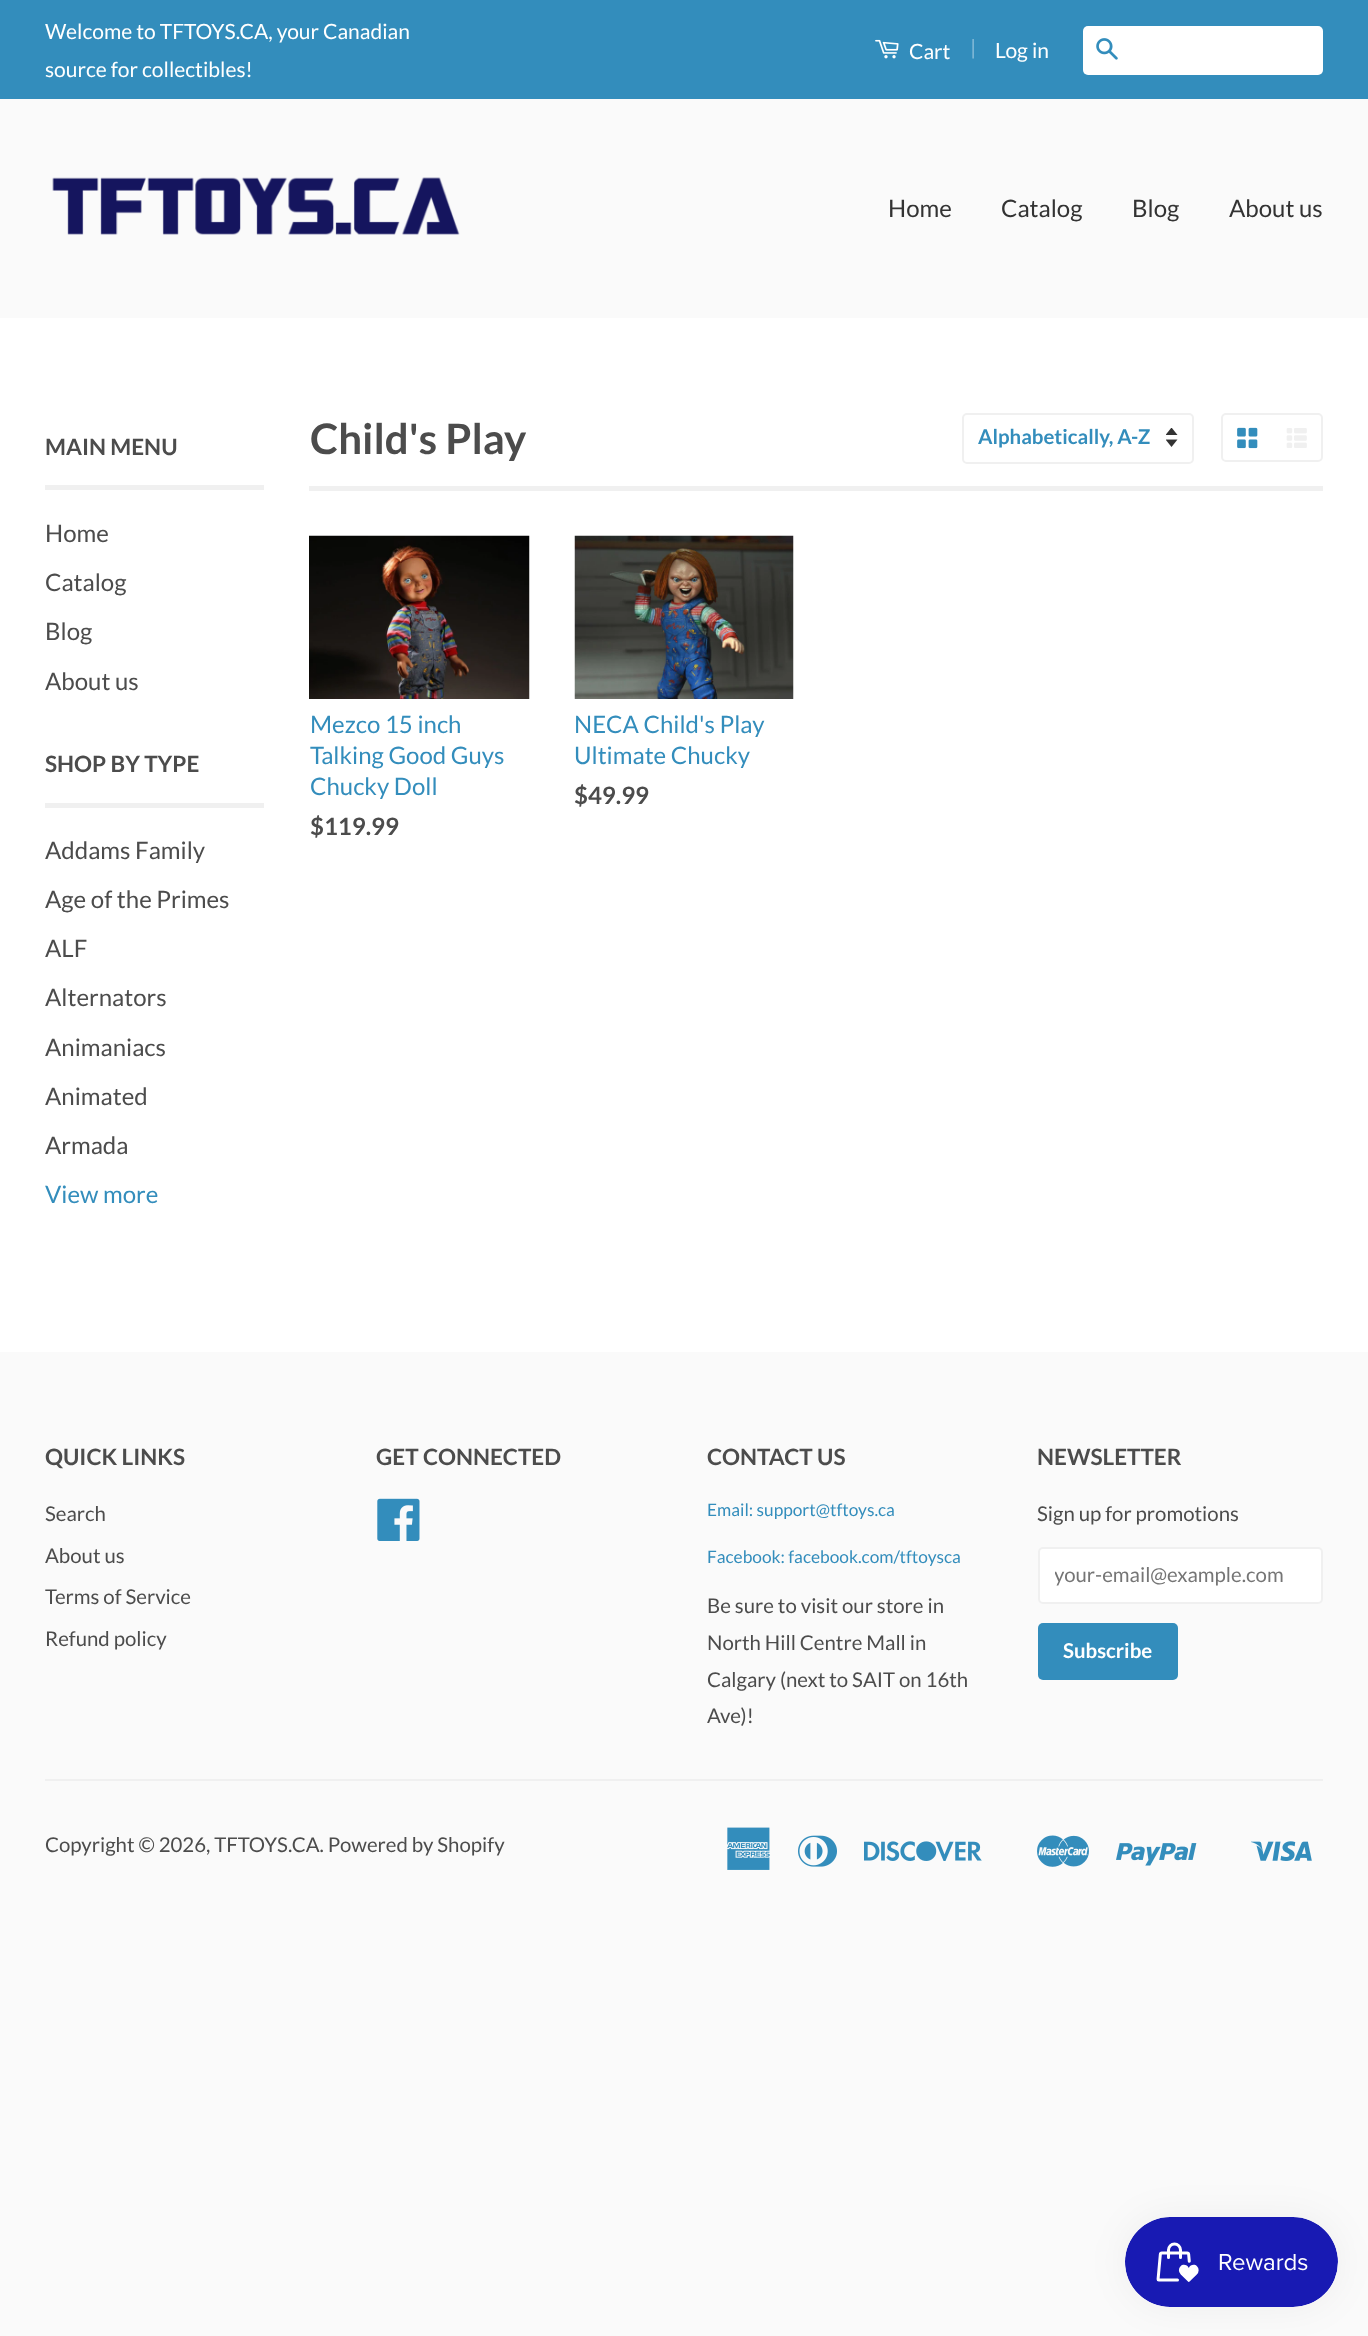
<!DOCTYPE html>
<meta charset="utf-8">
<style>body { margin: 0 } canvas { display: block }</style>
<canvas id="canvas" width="1368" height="2336"></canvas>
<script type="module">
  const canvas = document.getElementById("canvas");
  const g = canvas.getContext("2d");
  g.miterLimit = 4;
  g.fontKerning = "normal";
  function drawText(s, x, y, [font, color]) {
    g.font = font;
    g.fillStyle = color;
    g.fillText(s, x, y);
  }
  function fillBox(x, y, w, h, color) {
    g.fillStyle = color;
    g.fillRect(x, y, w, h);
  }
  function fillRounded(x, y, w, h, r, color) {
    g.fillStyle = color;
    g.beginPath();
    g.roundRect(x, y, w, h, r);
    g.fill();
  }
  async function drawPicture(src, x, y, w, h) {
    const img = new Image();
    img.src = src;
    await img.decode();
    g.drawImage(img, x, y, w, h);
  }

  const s1 = ["21px Lato", "#FFFFFF"];
  const s2 = ["21px Lato", "#85BBD7"];
  const s3 = ["24px Lato", "#333333"];
  const s4 = ["bold 22.5px Lato", "#4C4C4C"];
  const s5 = ["24px Lato", "#4C4C4C"];
  const s6 = ["24px Lato", "#338DBC"];
  const s7 = ["bold 42px Lato", "#4C4C4C"];
  const s8 = ["bold 20.4px Lato", "#338DBC"];
  const s9 = ["bold 24px Lato", "#4C4C4C"];
  const s10 = ["20.4px Lato", "#4C4C4C"];
  const s11 = ["17.3px Lato", "#338DBC"];
  const s12 = ["20.4px Lato", "#757575"];
  const s13 = ["bold 20.4px Lato", "#FFFFFF"];

  fillBox(0, 0, 1368, 2336, "#FAFAFA");
  fillBox(0, 318, 1368, 1034, "#FFFFFF");
  fillBox(0, 0, 1368, 99, "#338DBC");
  drawText("Welcome to TFTOYS.CA, your Canadian", 45, 39, s1);
  drawText("source for collectibles!", 45, 77, s1);
  await drawPicture("pic1.png", 875, 39, 24, 20);
  drawText("Cart", 909, 59, s1);
  drawText("|", 970, 55, s2);
  drawText("Log in", 995, 58, s1);
  fillRounded(1083, 26, 240, 49, 5, "#FFFFFF");
  await drawPicture("pic2.png", 1096, 38, 22, 22);
  await drawPicture("pic3.png", 52, 177, 408, 58);
  drawText("Home", 888, 217, s3);
  drawText("Catalog", 1001, 217, s3);
  drawText("Blog", 1132, 217, s3);
  drawText("About us", 1229, 217, s3);
  fillBox(45, 485, 219, 5, "#F0F0F0");
  drawText("MAIN MENU", 45, 455, s4);
  drawText("Home", 45, 542, s5);
  drawText("Catalog", 45, 591, s5);
  drawText("Blog", 45, 640, s5);
  drawText("About us", 45, 690, s5);
  fillBox(45, 803, 219, 5, "#F0F0F0");
  drawText("SHOP BY TYPE", 45, 772, s4);
  drawText("Addams Family", 45, 859, s5);
  drawText("Age of the Primes", 45, 908, s5);
  drawText("ALF", 45, 957, s5);
  drawText("Alternators", 45, 1006, s5);
  drawText("Animaniacs", 45, 1056, s5);
  drawText("Animated", 45, 1105, s5);
  drawText("Armada", 45, 1154, s5);
  drawText("View more", 45, 1203, s6);
  fillBox(309, 486, 1014, 5, "#F0F0F0");
  drawText("Child's Play", 310, 454, s7);
  await drawPicture("pic4.png", 1166, 428, 12, 19);
  g.beginPath();
  g.roundRect(963, 414, 230, 49, 4);
  g.strokeStyle = "#F0F0F0";
  g.lineWidth = 2;
  g.stroke();
  drawText("Alphabetically, A-Z", 978, 444, s8);
  g.beginPath();
  g.roundRect(1222, 414, 100, 47, 4);
  g.stroke();
  await drawPicture("pic5.png", 1237, 427, 21, 22);
  await drawPicture("pic6.png", 1286, 428, 21, 20);
  await drawPicture("pic7.png", 309, 535, 221, 164);
  drawText("Mezco 15 inch", 310, 733, s6);
  drawText("Talking Good Guys", 310, 764, s6);
  drawText("Chucky Doll", 310, 795, s6);
  drawText("$119.99", 310, 835, s9);
  await drawPicture("pic8.png", 574, 535, 220, 164);
  drawText("NECA Child's Play", 574, 733, s6);
  drawText("Ultimate Chucky", 574, 764, s6);
  drawText("$49.99", 574, 804, s9);
  drawText("QUICK LINKS", 45, 1465, s4);
  drawText("Search", 45, 1521, s10);
  drawText("About us", 45, 1563, s10);
  drawText("Terms of Service", 45, 1604, s10);
  drawText("Refund policy", 45, 1646, s10);
  drawText("GET CONNECTED", 376, 1465, s4);
  await drawPicture("pic9.png", 377, 1498, 43, 43);
  drawText("CONTACT US", 707, 1465, s4);
  drawText("Email: support@tftoys.ca", 707, 1516, s11);
  drawText("Facebook: facebook.com/tftoysca", 707, 1563, s11);
  drawText("Be sure to visit our store in", 707, 1613, s10);
  drawText("North Hill Centre Mall in", 707, 1650, s10);
  drawText("Calgary (next to SAIT on 16th", 707, 1687, s10);
  drawText("Ave)!", 707, 1723, s10);
  drawText("NEWSLETTER", 1037, 1465, s4);
  drawText("Sign up for promotions", 1037, 1521, s10);
  g.fillStyle = "#FFFFFF";
  g.beginPath();
  g.roundRect(1039, 1548, 283, 55, 4);
  g.fill();
  g.stroke();
  g.save();
  g.beginPath();
  g.rect(1055, 1562, 252, 24);
  g.clip();
  drawText("your-email@example.com", 1054, 1582, s12);
  g.restore();
  fillRounded(1038, 1623, 140, 57, 5, "#338DBC");
  drawText("Subscribe", 1063, 1658, s13);
  fillBox(45, 1779, 1278, 2, "#F0F0F0");
  drawText("Copyright © 2026, TFTOYS.CA. Powered by Shopify", 45, 1852, s10);
  await drawPicture("pic10.png", 727, 1827, 43, 43);
  await drawPicture("pic11.png", 798, 1835, 39, 32);
  await drawPicture("pic12.png", 864, 1841, 118, 20);
  await drawPicture("pic13.png", 1037, 1835, 52, 32);
  await drawPicture("pic14.png", 1116, 1843, 81, 23);
  await drawPicture("pic15.png", 1251, 1841, 61, 20);
  g.fillStyle = "rgba(0, 0, 0, 0.05)";
  g.filter = "blur(19px)";
  g.beginPath();
  g.roundRect(1125, 2217, 213, 90, 45);
  g.fill();
  g.filter = "none";
  await drawPicture("pic16.png", 1125, 2217, 213, 90);
</script>
